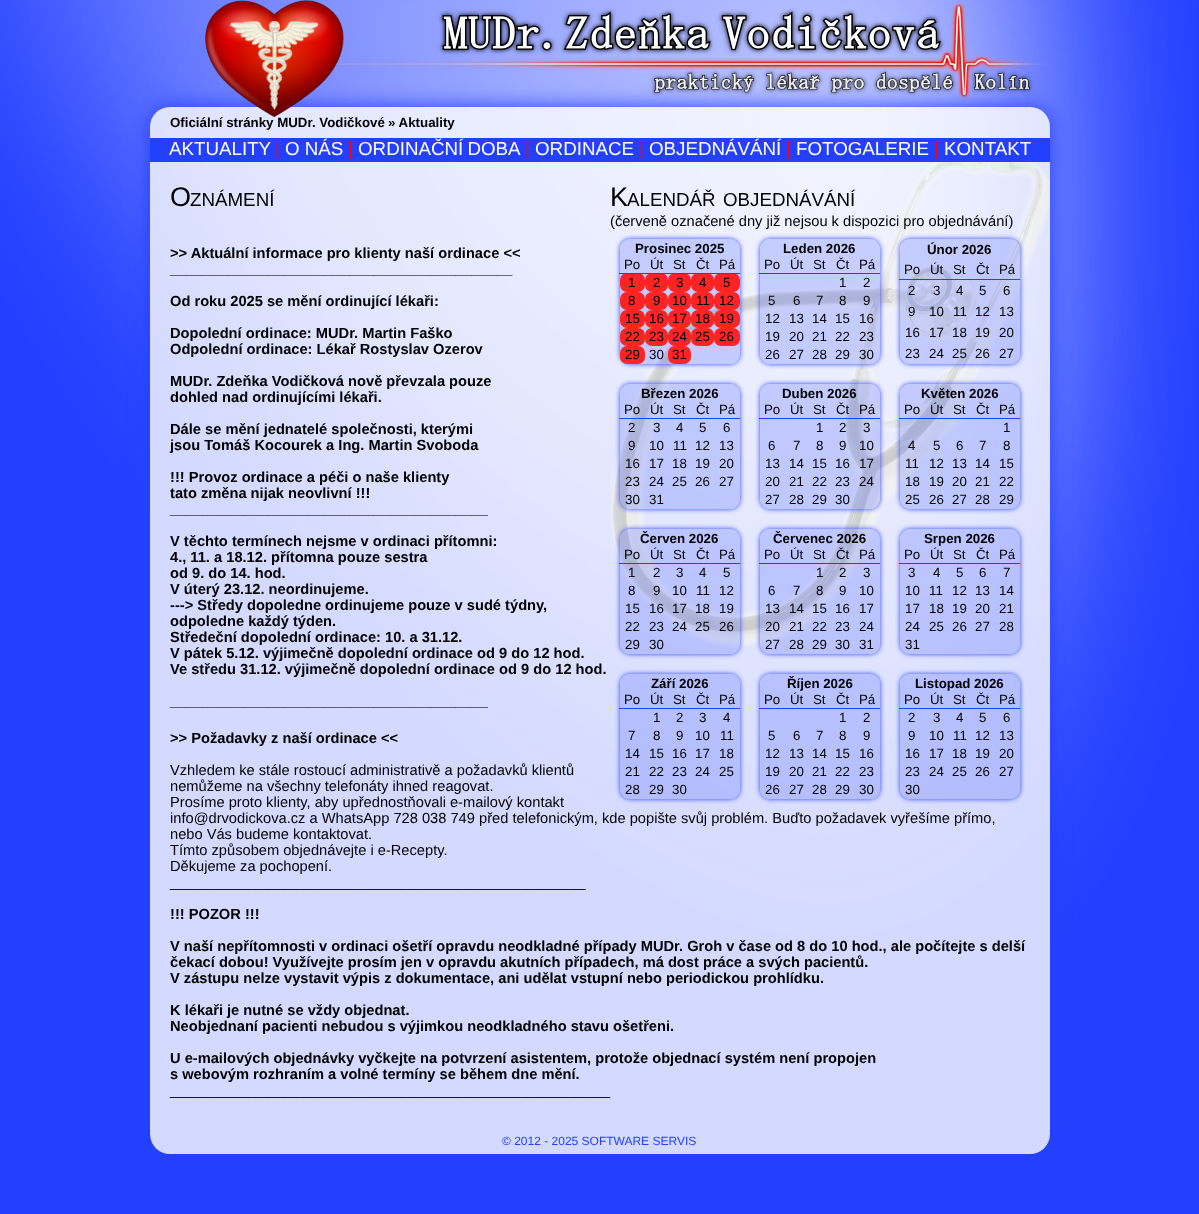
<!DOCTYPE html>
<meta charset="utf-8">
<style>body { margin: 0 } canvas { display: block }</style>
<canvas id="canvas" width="1199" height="1214"></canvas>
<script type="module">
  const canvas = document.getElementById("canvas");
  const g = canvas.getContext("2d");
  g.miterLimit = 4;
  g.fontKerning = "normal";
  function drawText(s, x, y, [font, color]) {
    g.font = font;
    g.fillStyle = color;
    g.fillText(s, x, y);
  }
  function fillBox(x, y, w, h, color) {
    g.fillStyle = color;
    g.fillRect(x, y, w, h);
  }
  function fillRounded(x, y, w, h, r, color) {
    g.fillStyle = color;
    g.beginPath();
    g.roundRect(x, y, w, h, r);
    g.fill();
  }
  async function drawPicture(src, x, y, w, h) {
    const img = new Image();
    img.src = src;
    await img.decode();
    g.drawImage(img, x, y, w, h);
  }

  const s1 = ["bold 13.3px Liberation Sans", "#000000"];
  const s2 = ["18.75px Liberation Sans", "#FFFFFF"];
  const s3 = ["18.75px Liberation Sans", "#FF0000"];
  const s4 = ["27px Liberation Sans", "#000000"];
  const s5 = ["18.75px Liberation Sans", "#000000"];
  const s6 = ["14.67px Liberation Sans", "#000000"];
  const s7 = ["13.3px Liberation Sans", "#000000"];
  const s8 = ["bold 14.67px Liberation Sans", "#000000"];
  const s9 = ["12px Liberation Sans", "#2440FF"];

  fillBox(0, 0, 1199, 1214, "#2440FF");
  await drawPicture("pic1.png", 0, 0, 1198, 978);
  await drawPicture("pic2.png", 334, 2, 712, 98);
  await drawPicture("pic4.png", 610, 162, 440, 487);
  g.save();
  g.beginPath();
  g.moveTo(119, 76);
  g.lineTo(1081, 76);
  g.lineTo(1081, 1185);
  g.lineTo(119, 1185);
  g.closePath();
  g.moveTo(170, 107);
  g.lineTo(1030, 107);
  g.bezierCurveTo(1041, 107, 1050, 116, 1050, 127);
  g.lineTo(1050, 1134);
  g.bezierCurveTo(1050, 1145, 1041, 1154, 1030, 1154);
  g.lineTo(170, 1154);
  g.bezierCurveTo(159, 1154, 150, 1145, 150, 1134);
  g.lineTo(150, 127);
  g.bezierCurveTo(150, 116, 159, 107, 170, 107);
  g.closePath();
  g.clip("evenodd");
  g.filter = "blur(10px)";
  g.beginPath();
  g.roundRect(150, 107, 900, 1047, 20);
  g.fill();
  g.filter = "none";
  g.restore();
  await drawPicture("pic5.png", 150, 107, 900, 1047);
  drawText("Oficiální stránky MUDr. Vodičkové", 170, 127, s1);
  await drawPicture("pic3.png", 205, 0, 139, 118);
  drawText("» Aktuality", 388, 127, s1);
  fillBox(150, 138, 900, 24, "#2440FF");
  drawText("AKTUALITY", 169, 155, s2);
  drawText("|", 275, 155, s3);
  drawText("O NÁS", 285, 155, s2);
  drawText("|", 348, 155, s3);
  g.wordSpacing = "-1px";
  drawText("ORDINAČNÍ DOBA", 358, 155, s2);
  g.wordSpacing = "0px";
  drawText("|", 525, 155, s3);
  drawText("ORDINACE", 535, 155, s2);
  drawText("|", 639, 155, s3);
  drawText("OBJEDNÁVÁNÍ", 649, 155, s2);
  drawText("|", 786, 155, s3);
  drawText("FOTOGALERIE", 796, 155, s2);
  drawText("|", 934, 155, s3);
  drawText("KONTAKT", 944, 155, s2);
  drawText("O", 170, 206, s4);
  drawText("ZNÁMENÍ", 190, 206, s5);
  drawText("K", 610, 206, s4);
  drawText("ALENDÁŘ", 627, 206, s5);
  drawText("OBJEDNÁVÁNÍ", 723, 206, s5);
  drawText("(červeně označené dny již nejsou k dispozici pro objednávání)", 610, 226, s6);
  g.save();
  g.beginPath();
  g.moveTo(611, 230);
  g.lineTo(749, 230);
  g.lineTo(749, 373);
  g.lineTo(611, 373);
  g.closePath();
  g.moveTo(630, 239);
  g.lineTo(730, 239);
  g.bezierCurveTo(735.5, 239, 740, 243.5, 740, 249);
  g.lineTo(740, 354);
  g.bezierCurveTo(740, 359.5, 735.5, 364, 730, 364);
  g.lineTo(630, 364);
  g.bezierCurveTo(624.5, 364, 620, 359.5, 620, 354);
  g.lineTo(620, 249);
  g.bezierCurveTo(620, 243.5, 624.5, 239, 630, 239);
  g.closePath();
  g.clip("evenodd");
  g.fillStyle = "#2440FF";
  g.filter = "blur(2.5px)";
  g.beginPath();
  g.roundRect(620, 239, 120, 125, 10);
  g.fill();
  g.filter = "none";
  g.restore();
  await drawPicture("pic6.png", 620, 239, 120, 125);
  drawText("Prosinec 2025", 635, 253, s1);
  fillRounded(620, 273, 25, 19, 7, "#FF2424");
  fillRounded(645, 273, 23, 19, 7, "#FF2424");
  fillRounded(668, 273, 23, 19, 7, "#FF2424");
  fillRounded(691, 273, 23, 19, 7, "#FF2424");
  fillRounded(714, 273, 26, 19, 7, "#FF2424");
  fillBox(619, 273, 121, 1, "#2440FF");
  drawText("Po", 624, 269, s7);
  drawText("Út", 650, 269, s7);
  drawText("St", 673, 269, s7);
  drawText("Čt", 696, 269, s7);
  drawText("Pá", 719, 269, s7);
  drawText("1", 628, 287, s7);
  drawText("2", 653, 287, s7);
  drawText("3", 676, 287, s7);
  drawText("4", 699, 287, s7);
  drawText("5", 723, 287, s7);
  fillRounded(620, 292, 25, 18, 7, "#FF2424");
  drawText("8", 628, 305, s7);
  fillRounded(645, 292, 23, 18, 7, "#FF2424");
  drawText("9", 653, 305, s7);
  fillRounded(668, 292, 23, 18, 7, "#FF2424");
  drawText("10", 672, 305, s7);
  fillRounded(691, 292, 23, 18, 7, "#FF2424");
  drawText("11", 696, 305, s7);
  fillRounded(714, 292, 26, 18, 7, "#FF2424");
  drawText("12", 719, 305, s7);
  fillRounded(620, 310, 25, 18, 7, "#FF2424");
  drawText("15", 625, 323, s7);
  fillRounded(645, 310, 23, 18, 7, "#FF2424");
  drawText("16", 649, 323, s7);
  fillRounded(668, 310, 23, 18, 7, "#FF2424");
  drawText("17", 672, 323, s7);
  fillRounded(691, 310, 23, 18, 7, "#FF2424");
  drawText("18", 695, 323, s7);
  fillRounded(714, 310, 26, 18, 7, "#FF2424");
  drawText("19", 719, 323, s7);
  fillRounded(620, 328, 25, 18, 7, "#FF2424");
  drawText("22", 625, 341, s7);
  fillRounded(645, 328, 23, 18, 7, "#FF2424");
  drawText("23", 649, 341, s7);
  fillRounded(668, 328, 23, 18, 7, "#FF2424");
  drawText("24", 672, 341, s7);
  fillRounded(691, 328, 23, 18, 7, "#FF2424");
  drawText("25", 695, 341, s7);
  fillRounded(714, 328, 26, 18, 7, "#FF2424");
  drawText("26", 719, 341, s7);
  fillRounded(620, 346, 25, 18, 7, "#FF2424");
  drawText("29", 625, 359, s7);
  drawText("30", 649, 359, s7);
  fillRounded(668, 346, 23, 18, 7, "#FF2424");
  drawText("31", 672, 359, s7);
  g.save();
  g.beginPath();
  g.moveTo(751, 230);
  g.lineTo(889, 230);
  g.lineTo(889, 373);
  g.lineTo(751, 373);
  g.closePath();
  g.moveTo(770, 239);
  g.lineTo(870, 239);
  g.bezierCurveTo(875.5, 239, 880, 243.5, 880, 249);
  g.lineTo(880, 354);
  g.bezierCurveTo(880, 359.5, 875.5, 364, 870, 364);
  g.lineTo(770, 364);
  g.bezierCurveTo(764.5, 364, 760, 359.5, 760, 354);
  g.lineTo(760, 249);
  g.bezierCurveTo(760, 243.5, 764.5, 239, 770, 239);
  g.closePath();
  g.clip("evenodd");
  g.fillStyle = "#2440FF";
  g.filter = "blur(2.5px)";
  g.beginPath();
  g.roundRect(760, 239, 120, 125, 10);
  g.fill();
  g.filter = "none";
  g.restore();
  await drawPicture("pic7.png", 760, 239, 120, 125);
  drawText("Leden 2026", 783, 253, s1);
  fillBox(759, 273, 1, 1, "#2440FF");
  drawText("Po", 764, 269, s7);
  drawText("Út", 790, 269, s7);
  drawText("St", 813, 269, s7);
  drawText("Čt", 836, 269, s7);
  drawText("Pá", 859, 269, s7);
  drawText("1", 839, 287, s7);
  drawText("2", 863, 287, s7);
  drawText("5", 768, 305, s7);
  drawText("6", 793, 305, s7);
  drawText("7", 816, 305, s7);
  drawText("8", 839, 305, s7);
  drawText("9", 863, 305, s7);
  drawText("12", 765, 323, s7);
  drawText("13", 789, 323, s7);
  drawText("14", 812, 323, s7);
  drawText("15", 835, 323, s7);
  drawText("16", 859, 323, s7);
  drawText("19", 765, 341, s7);
  drawText("20", 789, 341, s7);
  drawText("21", 812, 341, s7);
  drawText("22", 835, 341, s7);
  drawText("23", 859, 341, s7);
  drawText("26", 765, 359, s7);
  drawText("27", 789, 359, s7);
  drawText("28", 812, 359, s7);
  drawText("29", 835, 359, s7);
  drawText("30", 859, 359, s7);
  g.save();
  g.beginPath();
  g.moveTo(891, 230);
  g.lineTo(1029, 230);
  g.lineTo(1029, 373);
  g.lineTo(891, 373);
  g.closePath();
  g.moveTo(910, 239);
  g.lineTo(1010, 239);
  g.bezierCurveTo(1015.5, 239, 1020, 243.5, 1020, 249);
  g.lineTo(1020, 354);
  g.bezierCurveTo(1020, 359.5, 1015.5, 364, 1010, 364);
  g.lineTo(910, 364);
  g.bezierCurveTo(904.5, 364, 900, 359.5, 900, 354);
  g.lineTo(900, 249);
  g.bezierCurveTo(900, 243.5, 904.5, 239, 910, 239);
  g.closePath();
  g.clip("evenodd");
  g.fillStyle = "#2440FF";
  g.filter = "blur(2.5px)";
  g.beginPath();
  g.roundRect(900, 239, 120, 125, 10);
  g.fill();
  g.filter = "none";
  g.restore();
  await drawPicture("pic8.png", 900, 239, 120, 125);
  drawText("Únor 2026", 927, 254, s1);
  fillBox(899, 279, 1, 1, "#2440FF");
  drawText("Po", 904, 274, s7);
  drawText("Út", 930, 274, s7);
  drawText("St", 953, 274, s7);
  drawText("Čt", 976, 274, s7);
  drawText("Pá", 999, 274, s7);
  drawText("2", 908, 295, s7);
  drawText("3", 933, 295, s7);
  drawText("4", 956, 295, s7);
  drawText("5", 979, 295, s7);
  drawText("6", 1003, 295, s7);
  drawText("9", 908, 316, s7);
  drawText("10", 929, 316, s7);
  drawText("11", 953, 316, s7);
  drawText("12", 975, 316, s7);
  drawText("13", 999, 316, s7);
  drawText("16", 905, 337, s7);
  drawText("17", 929, 337, s7);
  drawText("18", 952, 337, s7);
  drawText("19", 975, 337, s7);
  drawText("20", 999, 337, s7);
  drawText("23", 905, 358, s7);
  drawText("24", 929, 358, s7);
  drawText("25", 952, 358, s7);
  drawText("26", 975, 358, s7);
  drawText("27", 999, 358, s7);
  g.save();
  g.beginPath();
  g.moveTo(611, 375);
  g.lineTo(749, 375);
  g.lineTo(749, 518);
  g.lineTo(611, 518);
  g.closePath();
  g.moveTo(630, 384);
  g.lineTo(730, 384);
  g.bezierCurveTo(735.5, 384, 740, 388.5, 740, 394);
  g.lineTo(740, 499);
  g.bezierCurveTo(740, 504.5, 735.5, 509, 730, 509);
  g.lineTo(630, 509);
  g.bezierCurveTo(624.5, 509, 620, 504.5, 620, 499);
  g.lineTo(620, 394);
  g.bezierCurveTo(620, 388.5, 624.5, 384, 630, 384);
  g.closePath();
  g.clip("evenodd");
  g.fillStyle = "#2440FF";
  g.filter = "blur(2.5px)";
  g.beginPath();
  g.roundRect(620, 384, 120, 125, 10);
  g.fill();
  g.filter = "none";
  g.restore();
  await drawPicture("pic9.png", 620, 384, 120, 125);
  drawText("Březen 2026", 641, 398, s1);
  fillBox(619, 418, 1, 1, "#2440FF");
  drawText("Po", 624, 414, s7);
  drawText("Út", 650, 414, s7);
  drawText("St", 673, 414, s7);
  drawText("Čt", 696, 414, s7);
  drawText("Pá", 719, 414, s7);
  drawText("2", 628, 432, s7);
  drawText("3", 653, 432, s7);
  drawText("4", 676, 432, s7);
  drawText("5", 699, 432, s7);
  drawText("6", 723, 432, s7);
  drawText("9", 628, 450, s7);
  drawText("10", 649, 450, s7);
  drawText("11", 673, 450, s7);
  drawText("12", 695, 450, s7);
  drawText("13", 719, 450, s7);
  drawText("16", 625, 468, s7);
  drawText("17", 649, 468, s7);
  drawText("18", 672, 468, s7);
  drawText("19", 695, 468, s7);
  drawText("20", 719, 468, s7);
  drawText("23", 625, 486, s7);
  drawText("24", 649, 486, s7);
  drawText("25", 672, 486, s7);
  drawText("26", 695, 486, s7);
  drawText("27", 719, 486, s7);
  drawText("30", 625, 504, s7);
  drawText("31", 649, 504, s7);
  g.save();
  g.beginPath();
  g.moveTo(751, 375);
  g.lineTo(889, 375);
  g.lineTo(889, 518);
  g.lineTo(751, 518);
  g.closePath();
  g.moveTo(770, 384);
  g.lineTo(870, 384);
  g.bezierCurveTo(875.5, 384, 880, 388.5, 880, 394);
  g.lineTo(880, 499);
  g.bezierCurveTo(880, 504.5, 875.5, 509, 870, 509);
  g.lineTo(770, 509);
  g.bezierCurveTo(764.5, 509, 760, 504.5, 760, 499);
  g.lineTo(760, 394);
  g.bezierCurveTo(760, 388.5, 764.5, 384, 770, 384);
  g.closePath();
  g.clip("evenodd");
  g.fillStyle = "#2440FF";
  g.filter = "blur(2.5px)";
  g.beginPath();
  g.roundRect(760, 384, 120, 125, 10);
  g.fill();
  g.filter = "none";
  g.restore();
  await drawPicture("pic10.png", 760, 384, 120, 125);
  drawText("Duben 2026", 782, 398, s1);
  fillBox(759, 418, 1, 1, "#2440FF");
  drawText("Po", 764, 414, s7);
  drawText("Út", 790, 414, s7);
  drawText("St", 813, 414, s7);
  drawText("Čt", 836, 414, s7);
  drawText("Pá", 859, 414, s7);
  drawText("1", 816, 432, s7);
  drawText("2", 839, 432, s7);
  drawText("3", 863, 432, s7);
  drawText("6", 768, 450, s7);
  drawText("7", 793, 450, s7);
  drawText("8", 816, 450, s7);
  drawText("9", 839, 450, s7);
  drawText("10", 859, 450, s7);
  drawText("13", 765, 468, s7);
  drawText("14", 789, 468, s7);
  drawText("15", 812, 468, s7);
  drawText("16", 835, 468, s7);
  drawText("17", 859, 468, s7);
  drawText("20", 765, 486, s7);
  drawText("21", 789, 486, s7);
  drawText("22", 812, 486, s7);
  drawText("23", 835, 486, s7);
  drawText("24", 859, 486, s7);
  drawText("27", 765, 504, s7);
  drawText("28", 789, 504, s7);
  drawText("29", 812, 504, s7);
  drawText("30", 835, 504, s7);
  g.save();
  g.beginPath();
  g.moveTo(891, 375);
  g.lineTo(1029, 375);
  g.lineTo(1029, 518);
  g.lineTo(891, 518);
  g.closePath();
  g.moveTo(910, 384);
  g.lineTo(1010, 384);
  g.bezierCurveTo(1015.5, 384, 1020, 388.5, 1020, 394);
  g.lineTo(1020, 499);
  g.bezierCurveTo(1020, 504.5, 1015.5, 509, 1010, 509);
  g.lineTo(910, 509);
  g.bezierCurveTo(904.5, 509, 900, 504.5, 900, 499);
  g.lineTo(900, 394);
  g.bezierCurveTo(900, 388.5, 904.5, 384, 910, 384);
  g.closePath();
  g.clip("evenodd");
  g.fillStyle = "#2440FF";
  g.filter = "blur(2.5px)";
  g.beginPath();
  g.roundRect(900, 384, 120, 125, 10);
  g.fill();
  g.filter = "none";
  g.restore();
  await drawPicture("pic11.png", 900, 384, 120, 125);
  drawText("Květen 2026", 921, 398, s1);
  fillBox(899, 418, 1, 1, "#2440FF");
  drawText("Po", 904, 414, s7);
  drawText("Út", 930, 414, s7);
  drawText("St", 953, 414, s7);
  drawText("Čt", 976, 414, s7);
  drawText("Pá", 999, 414, s7);
  drawText("1", 1003, 432, s7);
  drawText("4", 908, 450, s7);
  drawText("5", 933, 450, s7);
  drawText("6", 956, 450, s7);
  drawText("7", 979, 450, s7);
  drawText("8", 1003, 450, s7);
  drawText("11", 905, 468, s7);
  drawText("12", 929, 468, s7);
  drawText("13", 952, 468, s7);
  drawText("14", 975, 468, s7);
  drawText("15", 999, 468, s7);
  drawText("18", 905, 486, s7);
  drawText("19", 929, 486, s7);
  drawText("20", 952, 486, s7);
  drawText("21", 975, 486, s7);
  drawText("22", 999, 486, s7);
  drawText("25", 905, 504, s7);
  drawText("26", 929, 504, s7);
  drawText("27", 952, 504, s7);
  drawText("28", 975, 504, s7);
  drawText("29", 999, 504, s7);
  g.save();
  g.beginPath();
  g.moveTo(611, 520);
  g.lineTo(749, 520);
  g.lineTo(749, 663);
  g.lineTo(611, 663);
  g.closePath();
  g.moveTo(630, 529);
  g.lineTo(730, 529);
  g.bezierCurveTo(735.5, 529, 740, 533.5, 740, 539);
  g.lineTo(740, 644);
  g.bezierCurveTo(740, 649.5, 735.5, 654, 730, 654);
  g.lineTo(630, 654);
  g.bezierCurveTo(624.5, 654, 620, 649.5, 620, 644);
  g.lineTo(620, 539);
  g.bezierCurveTo(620, 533.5, 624.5, 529, 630, 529);
  g.closePath();
  g.clip("evenodd");
  g.fillStyle = "#2440FF";
  g.filter = "blur(2.5px)";
  g.beginPath();
  g.roundRect(620, 529, 120, 125, 10);
  g.fill();
  g.filter = "none";
  g.restore();
  await drawPicture("pic12.png", 620, 529, 120, 125);
  drawText("Červen 2026", 640, 543, s1);
  fillBox(619, 563, 1, 1, "#2440FF");
  drawText("Po", 624, 559, s7);
  drawText("Út", 650, 559, s7);
  drawText("St", 673, 559, s7);
  drawText("Čt", 696, 559, s7);
  drawText("Pá", 719, 559, s7);
  drawText("1", 628, 577, s7);
  drawText("2", 653, 577, s7);
  drawText("3", 676, 577, s7);
  drawText("4", 699, 577, s7);
  drawText("5", 723, 577, s7);
  drawText("8", 628, 595, s7);
  drawText("9", 653, 595, s7);
  drawText("10", 672, 595, s7);
  drawText("11", 696, 595, s7);
  drawText("12", 719, 595, s7);
  drawText("15", 625, 613, s7);
  drawText("16", 649, 613, s7);
  drawText("17", 672, 613, s7);
  drawText("18", 695, 613, s7);
  drawText("19", 719, 613, s7);
  drawText("22", 625, 631, s7);
  drawText("23", 649, 631, s7);
  drawText("24", 672, 631, s7);
  drawText("25", 695, 631, s7);
  drawText("26", 719, 631, s7);
  drawText("29", 625, 649, s7);
  drawText("30", 649, 649, s7);
  g.save();
  g.beginPath();
  g.moveTo(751, 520);
  g.lineTo(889, 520);
  g.lineTo(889, 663);
  g.lineTo(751, 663);
  g.closePath();
  g.moveTo(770, 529);
  g.lineTo(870, 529);
  g.bezierCurveTo(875.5, 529, 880, 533.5, 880, 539);
  g.lineTo(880, 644);
  g.bezierCurveTo(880, 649.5, 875.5, 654, 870, 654);
  g.lineTo(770, 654);
  g.bezierCurveTo(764.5, 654, 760, 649.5, 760, 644);
  g.lineTo(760, 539);
  g.bezierCurveTo(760, 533.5, 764.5, 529, 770, 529);
  g.closePath();
  g.clip("evenodd");
  g.fillStyle = "#2440FF";
  g.filter = "blur(2.5px)";
  g.beginPath();
  g.roundRect(760, 529, 120, 125, 10);
  g.fill();
  g.filter = "none";
  g.restore();
  await drawPicture("pic13.png", 760, 529, 120, 125);
  drawText("Červenec 2026", 773, 543, s1);
  fillBox(759, 563, 1, 1, "#2440FF");
  drawText("Po", 764, 559, s7);
  drawText("Út", 790, 559, s7);
  drawText("St", 813, 559, s7);
  drawText("Čt", 836, 559, s7);
  drawText("Pá", 859, 559, s7);
  drawText("1", 816, 577, s7);
  drawText("2", 839, 577, s7);
  drawText("3", 863, 577, s7);
  drawText("6", 768, 595, s7);
  drawText("7", 793, 595, s7);
  drawText("8", 816, 595, s7);
  drawText("9", 839, 595, s7);
  drawText("10", 859, 595, s7);
  drawText("13", 765, 613, s7);
  drawText("14", 789, 613, s7);
  drawText("15", 812, 613, s7);
  drawText("16", 835, 613, s7);
  drawText("17", 859, 613, s7);
  drawText("20", 765, 631, s7);
  drawText("21", 789, 631, s7);
  drawText("22", 812, 631, s7);
  drawText("23", 835, 631, s7);
  drawText("24", 859, 631, s7);
  drawText("27", 765, 649, s7);
  drawText("28", 789, 649, s7);
  drawText("29", 812, 649, s7);
  drawText("30", 835, 649, s7);
  drawText("31", 859, 649, s7);
  g.save();
  g.beginPath();
  g.moveTo(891, 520);
  g.lineTo(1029, 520);
  g.lineTo(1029, 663);
  g.lineTo(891, 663);
  g.closePath();
  g.moveTo(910, 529);
  g.lineTo(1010, 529);
  g.bezierCurveTo(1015.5, 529, 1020, 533.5, 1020, 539);
  g.lineTo(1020, 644);
  g.bezierCurveTo(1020, 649.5, 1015.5, 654, 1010, 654);
  g.lineTo(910, 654);
  g.bezierCurveTo(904.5, 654, 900, 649.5, 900, 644);
  g.lineTo(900, 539);
  g.bezierCurveTo(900, 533.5, 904.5, 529, 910, 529);
  g.closePath();
  g.clip("evenodd");
  g.fillStyle = "#2440FF";
  g.filter = "blur(2.5px)";
  g.beginPath();
  g.roundRect(900, 529, 120, 125, 10);
  g.fill();
  g.filter = "none";
  g.restore();
  await drawPicture("pic14.png", 900, 529, 120, 125);
  drawText("Srpen 2026", 924, 543, s1);
  fillBox(899, 563, 1, 1, "#2440FF");
  drawText("Po", 904, 559, s7);
  drawText("Út", 930, 559, s7);
  drawText("St", 953, 559, s7);
  drawText("Čt", 976, 559, s7);
  drawText("Pá", 999, 559, s7);
  drawText("3", 908, 577, s7);
  drawText("4", 933, 577, s7);
  drawText("5", 956, 577, s7);
  drawText("6", 979, 577, s7);
  drawText("7", 1003, 577, s7);
  drawText("10", 905, 595, s7);
  drawText("11", 929, 595, s7);
  drawText("12", 952, 595, s7);
  drawText("13", 975, 595, s7);
  drawText("14", 999, 595, s7);
  drawText("17", 905, 613, s7);
  drawText("18", 929, 613, s7);
  drawText("19", 952, 613, s7);
  drawText("20", 975, 613, s7);
  drawText("21", 999, 613, s7);
  drawText("24", 905, 631, s7);
  drawText("25", 929, 631, s7);
  drawText("26", 952, 631, s7);
  drawText("27", 975, 631, s7);
  drawText("28", 999, 631, s7);
  drawText("31", 905, 649, s7);
  g.save();
  g.beginPath();
  g.moveTo(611, 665);
  g.lineTo(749, 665);
  g.lineTo(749, 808);
  g.lineTo(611, 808);
  g.closePath();
  g.moveTo(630, 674);
  g.lineTo(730, 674);
  g.bezierCurveTo(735.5, 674, 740, 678.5, 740, 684);
  g.lineTo(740, 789);
  g.bezierCurveTo(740, 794.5, 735.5, 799, 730, 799);
  g.lineTo(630, 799);
  g.bezierCurveTo(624.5, 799, 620, 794.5, 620, 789);
  g.lineTo(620, 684);
  g.bezierCurveTo(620, 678.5, 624.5, 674, 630, 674);
  g.closePath();
  g.clip("evenodd");
  g.fillStyle = "#2440FF";
  g.filter = "blur(2.5px)";
  g.beginPath();
  g.roundRect(620, 674, 120, 125, 10);
  g.fill();
  g.filter = "none";
  g.restore();
  await drawPicture("pic15.png", 620, 674, 120, 125);
  drawText("Září 2026", 651, 688, s1);
  fillBox(619, 708, 1, 1, "#2440FF");
  drawText("Po", 624, 704, s7);
  drawText("Út", 650, 704, s7);
  drawText("St", 673, 704, s7);
  drawText("Čt", 696, 704, s7);
  drawText("Pá", 719, 704, s7);
  drawText("1", 653, 722, s7);
  drawText("2", 676, 722, s7);
  drawText("3", 699, 722, s7);
  drawText("4", 723, 722, s7);
  drawText("7", 628, 740, s7);
  drawText("8", 653, 740, s7);
  drawText("9", 676, 740, s7);
  drawText("10", 695, 740, s7);
  drawText("11", 720, 740, s7);
  drawText("14", 625, 758, s7);
  drawText("15", 649, 758, s7);
  drawText("16", 672, 758, s7);
  drawText("17", 695, 758, s7);
  drawText("18", 719, 758, s7);
  drawText("21", 625, 776, s7);
  drawText("22", 649, 776, s7);
  drawText("23", 672, 776, s7);
  drawText("24", 695, 776, s7);
  drawText("25", 719, 776, s7);
  drawText("28", 625, 794, s7);
  drawText("29", 649, 794, s7);
  drawText("30", 672, 794, s7);
  g.save();
  g.beginPath();
  g.moveTo(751, 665);
  g.lineTo(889, 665);
  g.lineTo(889, 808);
  g.lineTo(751, 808);
  g.closePath();
  g.moveTo(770, 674);
  g.lineTo(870, 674);
  g.bezierCurveTo(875.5, 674, 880, 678.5, 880, 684);
  g.lineTo(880, 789);
  g.bezierCurveTo(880, 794.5, 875.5, 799, 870, 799);
  g.lineTo(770, 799);
  g.bezierCurveTo(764.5, 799, 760, 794.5, 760, 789);
  g.lineTo(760, 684);
  g.bezierCurveTo(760, 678.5, 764.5, 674, 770, 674);
  g.closePath();
  g.clip("evenodd");
  g.fillStyle = "#2440FF";
  g.filter = "blur(2.5px)";
  g.beginPath();
  g.roundRect(760, 674, 120, 125, 10);
  g.fill();
  g.filter = "none";
  g.restore();
  await drawPicture("pic16.png", 760, 674, 120, 125);
  drawText("Říjen 2026", 787, 688, s1);
  fillBox(759, 708, 1, 1, "#2440FF");
  drawText("Po", 764, 704, s7);
  drawText("Út", 790, 704, s7);
  drawText("St", 813, 704, s7);
  drawText("Čt", 836, 704, s7);
  drawText("Pá", 859, 704, s7);
  drawText("1", 839, 722, s7);
  drawText("2", 863, 722, s7);
  drawText("5", 768, 740, s7);
  drawText("6", 793, 740, s7);
  drawText("7", 816, 740, s7);
  drawText("8", 839, 740, s7);
  drawText("9", 863, 740, s7);
  drawText("12", 765, 758, s7);
  drawText("13", 789, 758, s7);
  drawText("14", 812, 758, s7);
  drawText("15", 835, 758, s7);
  drawText("16", 859, 758, s7);
  drawText("19", 765, 776, s7);
  drawText("20", 789, 776, s7);
  drawText("21", 812, 776, s7);
  drawText("22", 835, 776, s7);
  drawText("23", 859, 776, s7);
  drawText("26", 765, 794, s7);
  drawText("27", 789, 794, s7);
  drawText("28", 812, 794, s7);
  drawText("29", 835, 794, s7);
  drawText("30", 859, 794, s7);
  g.save();
  g.beginPath();
  g.moveTo(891, 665);
  g.lineTo(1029, 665);
  g.lineTo(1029, 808);
  g.lineTo(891, 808);
  g.closePath();
  g.moveTo(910, 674);
  g.lineTo(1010, 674);
  g.bezierCurveTo(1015.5, 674, 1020, 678.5, 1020, 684);
  g.lineTo(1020, 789);
  g.bezierCurveTo(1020, 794.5, 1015.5, 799, 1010, 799);
  g.lineTo(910, 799);
  g.bezierCurveTo(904.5, 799, 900, 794.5, 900, 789);
  g.lineTo(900, 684);
  g.bezierCurveTo(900, 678.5, 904.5, 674, 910, 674);
  g.closePath();
  g.clip("evenodd");
  g.fillStyle = "#2440FF";
  g.filter = "blur(2.5px)";
  g.beginPath();
  g.roundRect(900, 674, 120, 125, 10);
  g.fill();
  g.filter = "none";
  g.restore();
  await drawPicture("pic17.png", 900, 674, 120, 125);
  drawText("Listopad 2026", 915, 688, s1);
  fillBox(899, 708, 1, 1, "#2440FF");
  drawText("Po", 904, 704, s7);
  drawText("Út", 930, 704, s7);
  drawText("St", 953, 704, s7);
  drawText("Čt", 976, 704, s7);
  drawText("Pá", 999, 704, s7);
  drawText("2", 908, 722, s7);
  drawText("3", 933, 722, s7);
  drawText("4", 956, 722, s7);
  drawText("5", 979, 722, s7);
  drawText("6", 1003, 722, s7);
  drawText("9", 908, 740, s7);
  drawText("10", 929, 740, s7);
  drawText("11", 953, 740, s7);
  drawText("12", 975, 740, s7);
  drawText("13", 999, 740, s7);
  drawText("16", 905, 758, s7);
  drawText("17", 929, 758, s7);
  drawText("18", 952, 758, s7);
  drawText("19", 975, 758, s7);
  drawText("20", 999, 758, s7);
  drawText("23", 905, 776, s7);
  drawText("24", 929, 776, s7);
  drawText("25", 952, 776, s7);
  drawText("26", 975, 776, s7);
  drawText("27", 999, 776, s7);
  drawText("30", 905, 794, s7);
  drawText(">> Aktuální informace pro klienty naší ordinace <<", 170, 258, s8);
  drawText("__________________________________________", 170, 274, s8);
  drawText("Od roku 2025 se mění ordinující lékaři:", 170, 306, s8);
  drawText("Dopolední ordinace: MUDr. Martin Faško", 170, 338, s8);
  drawText("Odpolední ordinace: Lékař Rostyslav Ozerov", 170, 354, s8);
  drawText("MUDr. Zdeňka Vodičková nově převzala pouze", 170, 386, s8);
  drawText("dohled nad ordinujícími lékaři.", 170, 402, s8);
  drawText("Dále se mění jednatelé společnosti, kterými", 170, 434, s8);
  drawText("jsou Tomáš Kocourek a Ing. Martin Svoboda", 170, 450, s8);
  drawText("!!! Provoz ordinace a péči o naše klienty", 170, 482, s8);
  drawText("tato změna nijak neovlivní !!!", 170, 498, s8);
  drawText("_______________________________________", 170, 514, s8);
  drawText("V těchto termínech nejsme v ordinaci přítomni:", 170, 546, s8);
  drawText("4., 11. a 18.12. přítomna pouze sestra", 170, 562, s8);
  drawText("od 9. do 14. hod.", 170, 578, s8);
  drawText("V úterý 23.12. neordinujeme.", 170, 594, s8);
  drawText("---> Středy dopoledne ordinujeme pouze v sudé týdny,", 170, 610, s8);
  drawText("odpoledne každý týden.", 170, 626, s8);
  drawText("Středeční dopolední ordinace: 10. a 31.12.", 170, 642, s8);
  drawText("V pátek 5.12. výjimečně dopolední ordinace od 9 do 12 hod.", 170, 658, s8);
  drawText("Ve středu 31.12. výjimečně dopolední ordinace od 9 do 12 hod.", 170, 674, s8);
  drawText("_______________________________________", 170, 706, s8);
  drawText(">> Požadavky z naší ordinace <<", 170, 743, s8);
  drawText("Vzhledem ke stále rostoucí administrativě a požadavků klientů", 170, 775, s6);
  drawText("nemůžeme na všechny telefonáty ihned reagovat.", 170, 791, s6);
  drawText("Prosíme proto klienty, aby upřednostňovali e-mailový kontakt", 170, 807, s6);
  drawText("info@drvodickova.cz a WhatsApp 728 038 749 před telefonickým, kde popište svůj problém. Buďto požadavek vyřešíme přímo,", 170, 823, s6);
  drawText("nebo Vás budeme kontaktovat.", 170, 839, s6);
  drawText("Tímto způsobem objednávejte i e-Recepty.", 170, 855, s6);
  drawText("Děkujeme za pochopení.", 170, 871, s6);
  drawText("___________________________________________________", 170, 887, s6);
  drawText("!!! POZOR !!!", 170, 919, s8);
  drawText("V naší nepřítomnosti v ordinaci ošetří opravdu neodkladné případy MUDr. Groh v čase od 8 do 10 hod., ale počítejte s delší", 170, 951, s8);
  drawText("čekací dobou! Využívejte prosím jen v opravdu akutních případech, má dost práce a svých pacientů.", 170, 967, s8);
  drawText("V zástupu nelze vystavit výpis z dokumentace, ani udělat vstupní nebo periodickou prohlídku.", 170, 983, s8);
  drawText("K lékaři je nutné se vždy objednat.", 170, 1015, s8);
  drawText("Neobjednaní pacienti nebudou s výjimkou neodkladného stavu ošetřeni.", 170, 1031, s8);
  drawText("U e-mailových objednávky vyčkejte na potvrzení asistentem, protože objednací systém není propojen", 170, 1063, s8);
  drawText("s webovým rozhraním a volné termíny se během dne mění.", 170, 1079, s8);
  drawText("______________________________________________________", 170, 1095, s6);
  drawText("© 2012 - 2025 SOFTWARE SERVIS", 502, 1145, s9);
</script>
